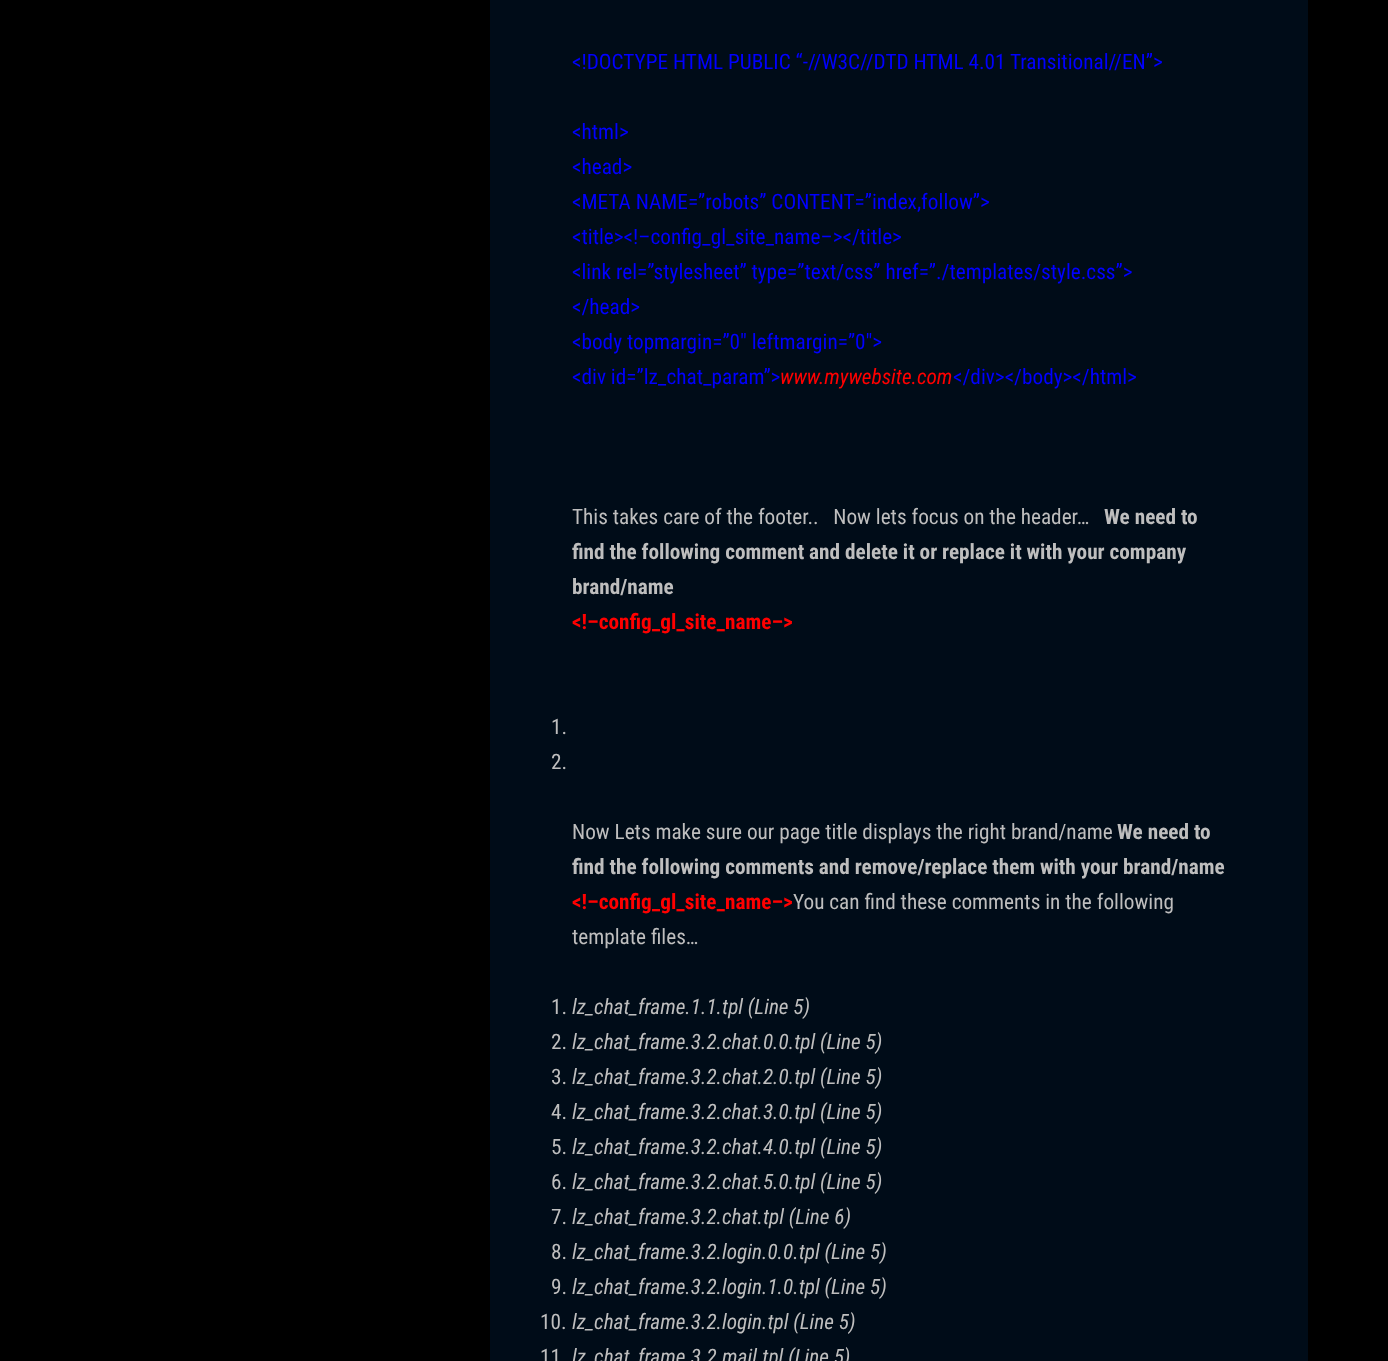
<!DOCTYPE html>
<meta charset="utf-8">
<style>body { margin: 0 } canvas { display: block }</style>
<canvas id="canvas" width="1388" height="1361"></canvas>
<script type="module">
  const canvas = document.getElementById("canvas");
  const g = canvas.getContext("2d");
  g.miterLimit = 4;
  g.fontKerning = "normal";
  function drawText(s, x, y, [font, color]) {
    g.font = font;
    g.fillStyle = color;
    g.fillText(s, x, y);
  }
  function fillBox(x, y, w, h, color) {
    g.fillStyle = color;
    g.fillRect(x, y, w, h);
  }

  const s1 = ["21.25px Roboto Condensed", "#0000FF"];
  const s2 = ["italic 21.25px Roboto Condensed", "#FF0000"];
  const s3 = ["21.25px Roboto Condensed", "#BEBEBE"];
  const s4 = ["bold 21.25px Roboto Condensed", "#BEBEBE"];
  const s5 = ["bold 21.25px Roboto Condensed", "#FF0000"];
  const s6 = ["italic 21.25px Roboto Condensed", "#BEBEBE"];

  fillBox(0, 0, 1388, 1361, "#000000");
  fillBox(490, 0, 818, 1361, "#000C18");
  drawText("<!DOCTYPE HTML PUBLIC “-//W3C//DTD HTML 4.01 Transitional//EN”>", 572, 69, s1);
  drawText("<html>", 572, 139, s1);
  drawText("<head>", 572, 174, s1);
  drawText("<META NAME=”robots” CONTENT=”index,follow”>", 572, 209, s1);
  drawText("<title><!–config_gl_site_name–><\/title>", 572, 244, s1);
  drawText("<link rel=”stylesheet” type=”text/css” href=”./templates/style.css”>", 572, 279, s1);
  drawText("<\/head>", 572, 314, s1);
  drawText("<body topmargin=”0″ leftmargin=”0″>", 572, 349, s1);
  drawText("<div id=”lz_chat_param”>", 572, 384, s1);
  drawText("www.mywebsite.com", 780, 384, s2);
  drawText("<\/div><\/body><\/html>", 953, 384, s1);
  drawText("This takes care of the footer..   Now lets focus on the header…", 572, 524, s3);
  drawText("We need to", 1104, 524, s4);
  drawText("find the following comment and delete it or replace it with your company", 572, 559, s4);
  drawText("brand/name", 572, 594, s4);
  drawText("<!–config_gl_site_name–>", 572, 629, s5);
  drawText("1.", 551, 734, s3);
  drawText("2.", 551, 769, s3);
  drawText("Now Lets make sure our page title displays the right brand/name", 572, 839, s3);
  drawText("We need to", 1117, 839, s4);
  drawText("find the following comments and remove/replace them with your brand/name", 572, 874, s4);
  drawText("<!–config_gl_site_name–>", 572, 909, s5);
  drawText("You can find these comments in the following", 793, 909, s3);
  drawText("template files…", 572, 944, s3);
  drawText("1.", 551, 1014, s3);
  drawText("lz_chat_frame.1.1.tpl (Line 5)", 572, 1014, s6);
  drawText("2.", 551, 1049, s3);
  drawText("lz_chat_frame.3.2.chat.0.0.tpl (Line 5)", 572, 1049, s6);
  drawText("3.", 551, 1084, s3);
  drawText("lz_chat_frame.3.2.chat.2.0.tpl (Line 5)", 572, 1084, s6);
  drawText("4.", 551, 1119, s3);
  drawText("lz_chat_frame.3.2.chat.3.0.tpl (Line 5)", 572, 1119, s6);
  drawText("5.", 551, 1154, s3);
  drawText("lz_chat_frame.3.2.chat.4.0.tpl (Line 5)", 572, 1154, s6);
  drawText("6.", 551, 1189, s3);
  drawText("lz_chat_frame.3.2.chat.5.0.tpl (Line 5)", 572, 1189, s6);
  drawText("7.", 551, 1224, s3);
  drawText("lz_chat_frame.3.2.chat.tpl (Line 6)", 572, 1224, s6);
  drawText("8.", 551, 1259, s3);
  drawText("lz_chat_frame.3.2.login.0.0.tpl (Line 5)", 572, 1259, s6);
  drawText("9.", 551, 1294, s3);
  drawText("lz_chat_frame.3.2.login.1.0.tpl (Line 5)", 572, 1294, s6);
  drawText("10.", 540, 1329, s3);
  drawText("lz_chat_frame.3.2.login.tpl (Line 5)", 572, 1329, s6);
  drawText("11", 540, 1364, s3);
  drawText("lz_chat_frame.3.2.mail.tpl (Line 5)", 572, 1364, s6);
</script>
